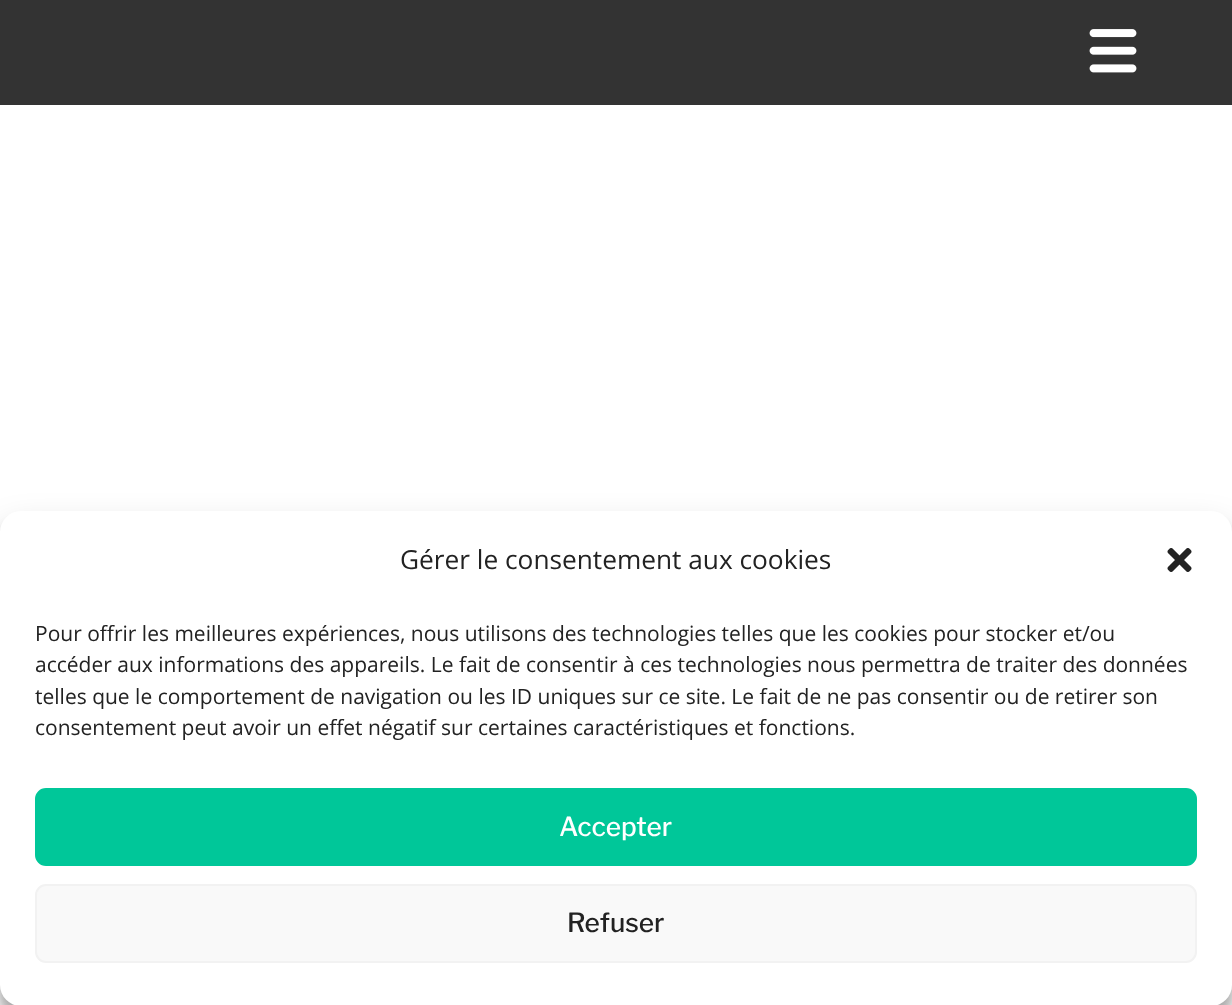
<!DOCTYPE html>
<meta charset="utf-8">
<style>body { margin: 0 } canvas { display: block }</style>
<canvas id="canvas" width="1232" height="1005"></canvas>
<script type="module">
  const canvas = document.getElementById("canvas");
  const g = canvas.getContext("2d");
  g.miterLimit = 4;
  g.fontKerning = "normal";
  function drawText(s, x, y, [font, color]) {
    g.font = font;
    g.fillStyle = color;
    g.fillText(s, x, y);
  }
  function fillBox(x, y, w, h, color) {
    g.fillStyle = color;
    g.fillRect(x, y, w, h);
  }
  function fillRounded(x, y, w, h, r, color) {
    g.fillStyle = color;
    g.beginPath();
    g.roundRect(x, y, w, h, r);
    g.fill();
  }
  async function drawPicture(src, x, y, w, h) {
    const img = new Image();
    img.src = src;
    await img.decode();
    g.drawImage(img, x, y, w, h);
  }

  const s1 = ["26.25px Open Sans", "#222222"];
  const s2 = ["21px Open Sans", "#222222"];
  const s3 = ["500 26.25px Libre Franklin", "#FFFFFF"];
  const s4 = ["500 26.25px Libre Franklin", "#222222"];

  fillBox(0, 0, 1232, 1005, "#FFFFFF");
  fillBox(0, 0, 1232, 105, "#333333");
  await drawPicture("pic1.png", 1089, 29, 48, 44);
  g.fillStyle = "rgba(0, 0, 0, 0.23)";
  g.filter = "blur(5px)";
  g.beginPath();
  g.roundRect(0, 522, 1232, 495, 21);
  g.fill();
  g.filter = "none";
  g.fillStyle = "rgba(0, 0, 0, 0.19)";
  g.filter = "blur(17.5px)";
  g.beginPath();
  g.roundRect(0, 529, 1232, 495, 21);
  g.fill();
  g.filter = "none";
  fillRounded(0, 511, 1232, 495, 21, "#FFFFFF");
  drawText("Gérer le consentement aux cookies", 400, 569, s1);
  await drawPicture("pic2.png", 1167, 548, 25, 24);
  drawText("Pour offrir les meilleures expériences, nous utilisons des technologies telles que les cookies pour stocker et/ou", 35, 641, s2);
  drawText("accéder aux informations des appareils. Le fait de consentir à ces technologies nous permettra de traiter des données", 35, 672, s2);
  drawText("telles que le comportement de navigation ou les ID uniques sur ce site. Le fait de ne pas consentir ou de retirer son", 35, 704, s2);
  drawText("consentement peut avoir un effet négatif sur certaines caractéristiques et fonctions.", 35, 735, s2);
  g.fillStyle = "#00C799";
  g.beginPath();
  g.roundRect(36, 789, 1160, 76, 10);
  g.fill();
  g.strokeStyle = "#00C799";
  g.lineWidth = 2;
  g.stroke();
  drawText("Accepter", 559, 836, s3);
  g.fillStyle = "#F9F9F9";
  g.beginPath();
  g.roundRect(36, 885, 1160, 77, 10);
  g.fill();
  g.strokeStyle = "#F2F2F2";
  g.stroke();
  drawText("Refuser", 567, 932, s4);
</script>
